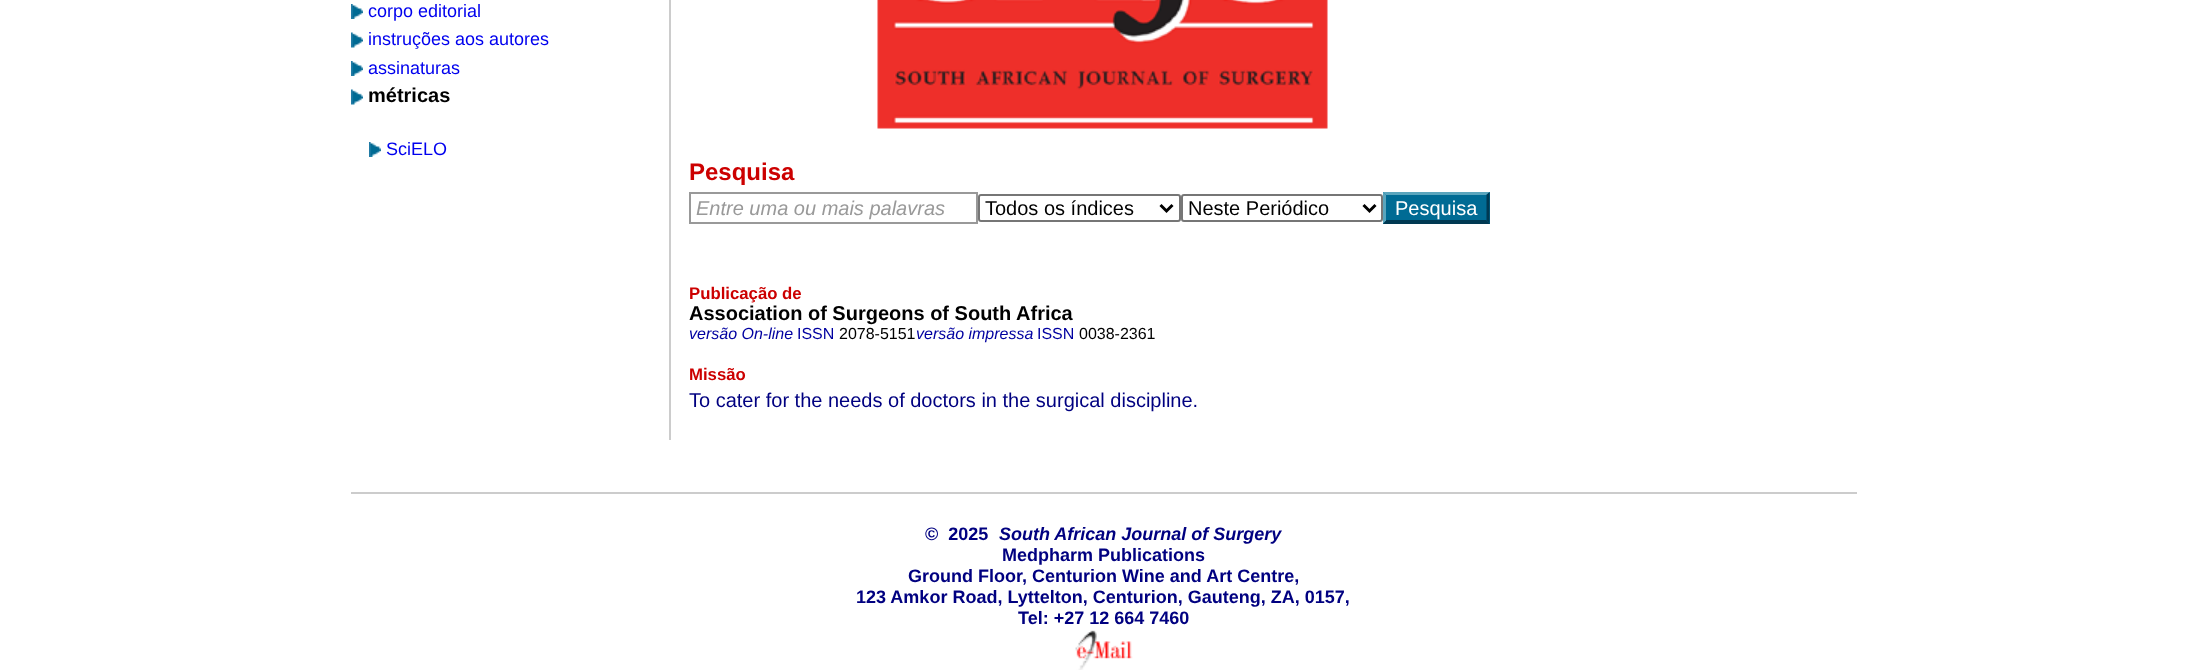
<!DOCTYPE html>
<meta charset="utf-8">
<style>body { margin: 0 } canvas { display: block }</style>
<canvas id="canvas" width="2206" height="670"></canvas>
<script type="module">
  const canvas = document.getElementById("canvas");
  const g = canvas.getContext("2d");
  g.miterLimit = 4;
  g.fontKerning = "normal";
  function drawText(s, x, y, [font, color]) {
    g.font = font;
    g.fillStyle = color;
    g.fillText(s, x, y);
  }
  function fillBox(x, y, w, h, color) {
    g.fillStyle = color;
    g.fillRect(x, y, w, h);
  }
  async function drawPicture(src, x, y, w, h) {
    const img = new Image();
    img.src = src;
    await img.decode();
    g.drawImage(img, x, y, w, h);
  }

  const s1 = ["18px Liberation Sans", "#0000EE"];
  const s2 = ["bold 20px Liberation Sans", "#000000"];
  const s3 = ["bold 24px Liberation Sans", "#CC0000"];
  const s4 = ["italic 20px Liberation Sans", "#999999"];
  const s5 = ["20px Liberation Sans", "#000000"];
  const s6 = ["20px Liberation Sans", "#FFFFFF"];
  const s7 = ["bold 16.75px Liberation Sans", "#CC0000"];
  const s8 = ["italic 16px Liberation Sans", "#0000A0"];
  const s9 = ["16px Liberation Sans", "#0000A0"];
  const s10 = ["16px Liberation Sans", "#000000"];
  const s11 = ["20px Liberation Sans", "#000080"];
  const s12 = ["bold 18px Liberation Sans", "#000080"];
  const s13 = ["italic bold 18px Liberation Sans", "#000080"];

  fillBox(0, 0, 2206, 670, "#FFFFFF");
  await drawPicture("pic1.png", 351, 4, 12, 15);
  drawText("corpo editorial", 368, 17, s1);
  await drawPicture("pic2.png", 351, 32, 12, 16);
  drawText("instruções aos autores", 368, 45, s1);
  await drawPicture("pic1.png", 351, 61, 12, 15);
  drawText("assinaturas", 368, 74, s1);
  await drawPicture("pic2.png", 351, 89, 12, 16);
  drawText("métricas", 368, 102, s2);
  await drawPicture("pic3.png", 369, 142, 12, 15);
  drawText("SciELO", 386, 155, s1);
  fillBox(669, 0, 2, 440, "#CCCCCC");
  await drawPicture("pic4.png", 877, 0, 451, 129);
  drawText("Pesquisa", 689, 180, s3);
  g.strokeStyle = "#999999";
  g.lineWidth = 2;
  g.strokeRect(690, 193, 287, 30);
  drawText("Entre uma ou mais palavras", 696, 215, s4);
  g.beginPath();
  g.roundRect(979, 195, 201, 26, 2);
  g.strokeStyle = "#767676";
  g.stroke();
  g.beginPath();
  g.moveTo(1160.5, 205);
  g.lineTo(1166.5, 211);
  g.lineTo(1172.5, 205);
  g.strokeStyle = "#000000";
  g.lineWidth = 3;
  g.stroke();
  drawText("Todos os índices", 985, 215, s5);
  g.beginPath();
  g.roundRect(1182, 195, 200, 26, 2);
  g.strokeStyle = "#767676";
  g.lineWidth = 2;
  g.stroke();
  g.beginPath();
  g.moveTo(1363.5, 205);
  g.lineTo(1369.5, 211);
  g.lineTo(1375.5, 205);
  g.strokeStyle = "#000000";
  g.lineWidth = 3;
  g.stroke();
  drawText("Neste Periódico", 1188, 215, s5);
  fillBox(1383, 192, 107, 32, "#006B94");
  g.fillStyle = "#5AA5BD";
  g.beginPath();
  g.moveTo(1383, 192);
  g.lineTo(1490, 192);
  g.lineTo(1486, 195);
  g.lineTo(1386, 195);
  g.closePath();
  g.fill();
  g.fillStyle = "#003952";
  g.beginPath();
  g.moveTo(1489.5, 192);
  g.lineTo(1489.5, 223.5);
  g.lineTo(1486.5, 220.5);
  g.lineTo(1486.5, 195);
  g.closePath();
  g.fill();
  g.beginPath();
  g.moveTo(1490, 224);
  g.lineTo(1383, 224);
  g.lineTo(1386, 220);
  g.lineTo(1486, 220);
  g.closePath();
  g.fill();
  g.fillStyle = "#5AA5BD";
  g.beginPath();
  g.moveTo(1383, 223.5);
  g.lineTo(1383, 192);
  g.lineTo(1386, 195);
  g.lineTo(1386, 220.5);
  g.closePath();
  g.fill();
  drawText("Pesquisa", 1395, 215, s6);
  drawText("Publicação de", 689, 299, s7);
  drawText("Association of Surgeons of South Africa", 689, 320, s2);
  drawText("versão On-line", 689, 339, s8);
  drawText("ISSN", 797, 339, s9);
  drawText("2078-5151", 839, 339, s10);
  drawText("versão impressa", 916, 339, s8);
  drawText("ISSN", 1037, 339, s9);
  drawText("0038-2361", 1079, 339, s10);
  drawText("Missão", 689, 380, s7);
  drawText("To cater for the needs of doctors in the surgical discipline.", 689, 407, s11);
  fillBox(351, 492, 1506, 2, "#CCCCCC");
  drawText("©  2025", 925, 540, s12);
  drawText("South African Journal of Surgery", 999, 540, s13);
  drawText("Medpharm Publications", 1002, 561, s12);
  drawText("Ground Floor, Centurion Wine and Art Centre,", 908, 582, s12);
  drawText("123 Amkor Road, Lyttelton, Centurion, Gauteng, ZA, 0157,", 856, 603, s12);
  drawText("Tel: +27 12 664 7460", 1018, 624, s12);
  await drawPicture("pic5.png", 1075, 630, 58, 40);
</script>
